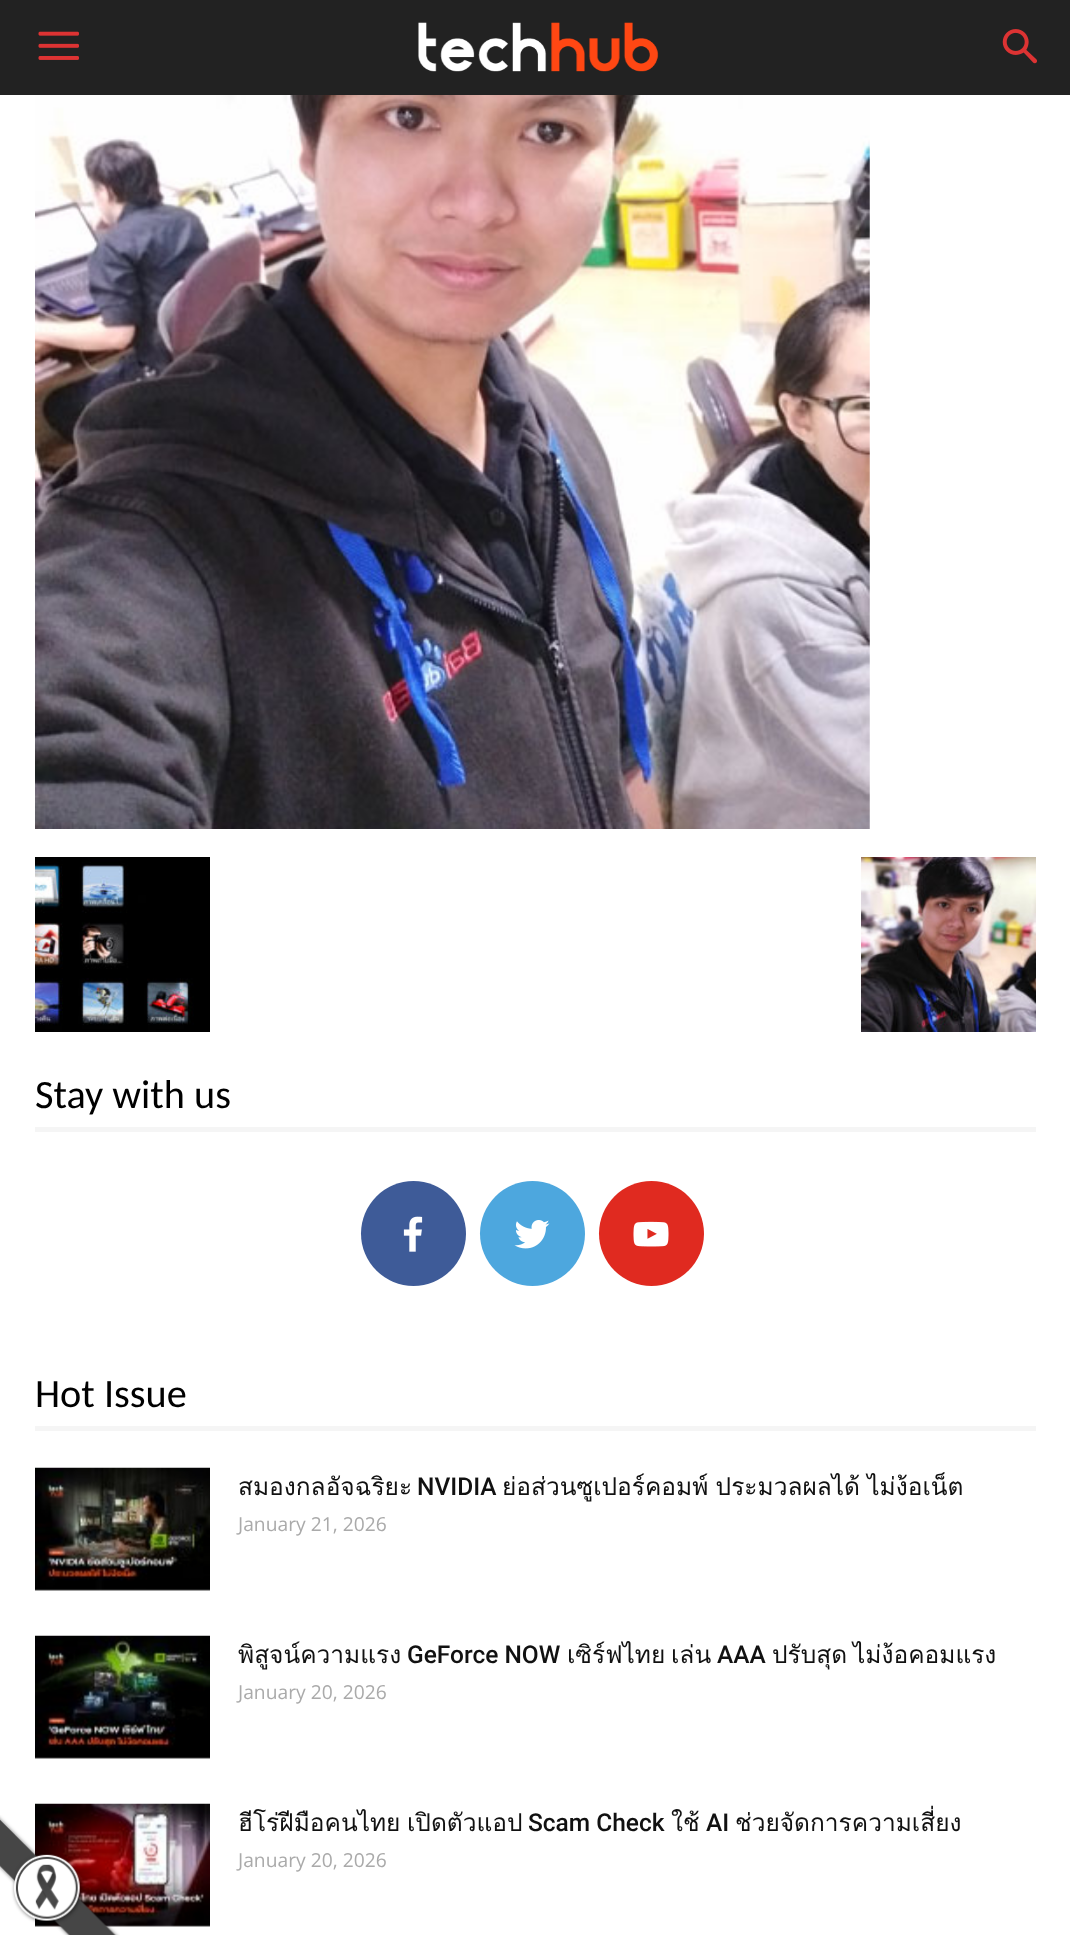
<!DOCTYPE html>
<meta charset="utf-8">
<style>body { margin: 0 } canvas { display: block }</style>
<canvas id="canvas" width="1070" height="1935"></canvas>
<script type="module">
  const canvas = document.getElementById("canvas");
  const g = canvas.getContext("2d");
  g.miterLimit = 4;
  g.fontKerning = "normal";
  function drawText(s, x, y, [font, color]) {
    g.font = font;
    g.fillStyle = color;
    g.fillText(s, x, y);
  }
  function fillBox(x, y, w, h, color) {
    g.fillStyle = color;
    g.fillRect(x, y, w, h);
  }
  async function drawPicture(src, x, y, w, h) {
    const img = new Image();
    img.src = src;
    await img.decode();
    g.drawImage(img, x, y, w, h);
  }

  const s1 = ["40.25px Carlito", "#000000"];
  const s2 = ["24.5px Loma", "#111111"];
  const s3 = ["500 24.5px Roboto", "#111111"];
  const s4 = ["19.25px Open Sans", "#AAAAAA"];

  fillBox(0, 0, 1070, 1935, "#FFFFFF");
  fillBox(0, 0, 1070, 95, "#222222");
  await drawPicture("pic1.png", 38, 31, 41, 29);
  await drawPicture("pic2.png", 418, 22, 241, 50);
  await drawPicture("pic3.png", 1002, 29, 35, 35);
  await drawPicture("pic4.png", 35, 95, 835, 734);
  await drawPicture("pic5.png", 35, 857, 175, 175);
  await drawPicture("pic6.png", 861, 857, 175, 175);
  drawText("Stay with us", 35, 1108, s1);
  fillBox(35, 1127, 1001, 5, "#F5F5F5");
  g.fillStyle = "#3E5B98";
  g.beginPath();
  g.arc(413.5, 1233.5, 52.5, 0, Math.PI * 2);
  g.fill();
  await drawPicture("pic7.png", 403, 1216, 20, 36);
  g.fillStyle = "#4DA7DE";
  g.beginPath();
  g.arc(532.5, 1233.5, 52.5, 0, Math.PI * 2);
  g.fill();
  await drawPicture("pic8.png", 514, 1220, 36, 29);
  g.fillStyle = "#E02A20";
  g.beginPath();
  g.arc(651.5, 1233.5, 52.5, 0, Math.PI * 2);
  g.fill();
  await drawPicture("pic9.png", 633, 1221, 36, 26);
  drawText("Hot Issue", 35, 1407, s1);
  fillBox(35, 1426, 1001, 5, "#F5F5F5");
  await drawPicture("pic10.png", 35, 1467, 175, 124);
  drawText("สมองกลอัจฉริยะ", 238, 1495, s2);
  drawText("NVIDIA", 417, 1495, s3);
  g.wordSpacing = "-1px";
  drawText("ย่อส่วนซูเปอร์คอมพ์ ประมวลผลได้ ไม่ง้อเน็ต", 502, 1495, s2);
  g.wordSpacing = "0px";
  drawText("January 21, 2026", 238, 1531, s4);
  await drawPicture("pic11.png", 35, 1635, 175, 124);
  drawText("พิสูจน์ความแรง", 238, 1663, s2);
  drawText("GeForce NOW", 407, 1663, s3);
  drawText("เซิร์ฟไทย", 567, 1663, s2);
  drawText("เล่น", 671, 1663, s2);
  drawText("AAA", 717, 1663, s3);
  drawText("ปรับสุด", 772, 1663, s2);
  drawText("ไม่ง้อคอมแรง", 853, 1663, s2);
  drawText("January 20, 2026", 238, 1699, s4);
  await drawPicture("pic12.png", 35, 1803, 175, 124);
  drawText("ฮีโร่ฝีมือคนไทย", 238, 1831, s2);
  drawText("เปิดตัวแอป", 407, 1831, s2);
  drawText("Scam Check", 528, 1831, s3);
  drawText("ใช้", 671, 1831, s2);
  drawText("AI", 706, 1831, s3);
  drawText("ช่วยจัดการความเสี่ยง", 735, 1831, s2);
  drawText("January 20, 2026", 238, 1867, s4);
  await drawPicture("pic13.png", 0, 1815, 120, 120);
</script>
